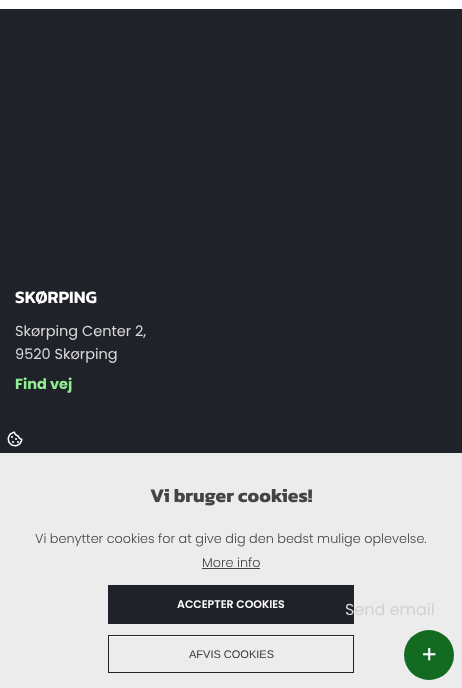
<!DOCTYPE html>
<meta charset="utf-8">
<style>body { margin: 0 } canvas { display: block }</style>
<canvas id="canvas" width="462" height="688"></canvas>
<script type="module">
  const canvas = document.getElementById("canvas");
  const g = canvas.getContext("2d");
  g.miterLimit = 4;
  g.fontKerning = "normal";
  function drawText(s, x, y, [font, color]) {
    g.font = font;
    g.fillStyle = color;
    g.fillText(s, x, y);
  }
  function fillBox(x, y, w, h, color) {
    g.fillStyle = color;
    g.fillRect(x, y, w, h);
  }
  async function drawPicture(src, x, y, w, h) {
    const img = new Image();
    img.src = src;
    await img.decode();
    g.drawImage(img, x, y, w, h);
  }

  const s1 = ["600 17.5px Kanit", "#FFFFFF"];
  const s2 = ["14.5px Poppins", "#D9D9DB"];
  const s3 = ["bold 14.5px Poppins", "#90EE90"];
  const s4 = ["16px Poppins", "#D2D2D3"];
  const s5 = ["24px Poppins", "#FFFFFF"];
  const s6 = ["bold 19.25px Kanit", "#444444"];
  const s7 = ["300 12.8px Poppins", "#444444"];
  const s8 = ["600 11px Poppins", "#FFFFFF"];
  const s9 = ["11px Liberation Sans", "#343A40"];

  fillBox(0, 0, 462, 688, "#FFFFFF");
  fillBox(0, 9, 462, 444, "#202229");
  drawText("SKØRPING", 15, 303, s1);
  drawText("Skørping Center 2,", 15, 336, s2);
  drawText("9520 Skørping", 15, 359, s2);
  drawText("Find vej", 15, 389, s3);
  fillBox(0, 453, 462, 235, "#ECECEC");
  fillBox(108, 585, 246, 39, "#202229");
  drawText("Send email", 345, 615, s4);
  g.fillStyle = "#126B21";
  g.beginPath();
  g.arc(429, 655, 25, 0, Math.PI * 2);
  g.fill();
  drawText("+", 421, 663, s5);
  await drawPicture("pic1.png", 7, 431, 16, 16);
  drawText("Vi bruger cookies!", 150, 502, s6);
  drawText("Vi benytter cookies for at give dig den bedst mulige oplevelse.", 35, 543, s7);
  drawText("More info", 202, 567, s7);
  fillBox(202, 568, 58, 1, "#444444");
  drawText("ACCEPTER COOKIES", 177, 608, s8);
  fillBox(109, 636, 244, 1, "#FFFFFF");
  g.strokeStyle = "#202229";
  g.strokeRect(108.5, 635.5, 245, 37);
  drawText("AFVIS COOKIES", 189, 658, s9);
</script>
